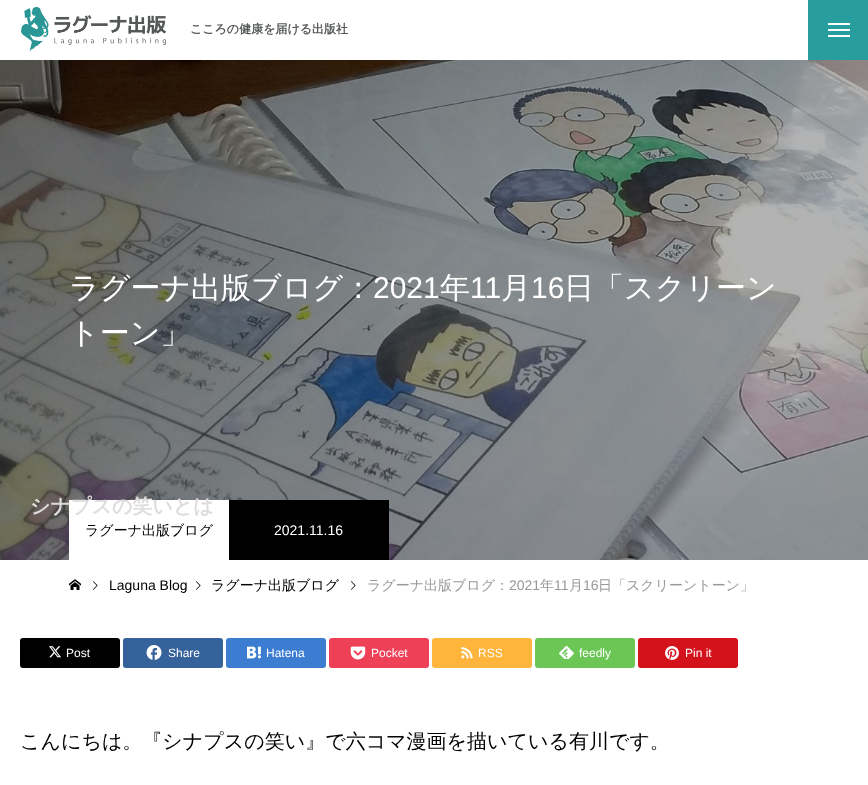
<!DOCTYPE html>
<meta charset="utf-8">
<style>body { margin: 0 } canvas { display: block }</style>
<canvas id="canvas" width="868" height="785"></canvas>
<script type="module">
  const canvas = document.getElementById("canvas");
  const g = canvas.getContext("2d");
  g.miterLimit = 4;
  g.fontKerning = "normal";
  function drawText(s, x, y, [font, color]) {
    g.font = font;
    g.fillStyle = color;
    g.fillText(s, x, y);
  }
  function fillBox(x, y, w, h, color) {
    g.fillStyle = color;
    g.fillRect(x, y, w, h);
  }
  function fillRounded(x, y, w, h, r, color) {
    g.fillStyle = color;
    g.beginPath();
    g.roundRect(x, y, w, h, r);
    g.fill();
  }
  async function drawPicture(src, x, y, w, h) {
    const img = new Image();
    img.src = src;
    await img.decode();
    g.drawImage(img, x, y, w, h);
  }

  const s1 = ["bold 12px WenQuanYi Zen Hei", "#555858"];
  const s2 = ["500 30px WenQuanYi Zen Hei", "#FFFFFF"];
  const s3 = ["30px Liberation Sans", "#FFFFFF"];
  const s4 = ["500 14px WenQuanYi Zen Hei", "#000000"];
  const s5 = ["14px Liberation Sans", "#FFFFFF"];
  const s6 = ["bold 20px WenQuanYi Zen Hei", "#DEDCDC"];
  const s7 = ["14px Liberation Sans", "#000000"];
  const s8 = ["500 14px WenQuanYi Zen Hei", "#999999"];
  const s9 = ["14px Liberation Sans", "#999999"];
  const s10 = ["12px Liberation Sans", "#FFFFFF"];
  const s11 = ["500 20px WenQuanYi Zen Hei", "#000000"];

  fillBox(0, 0, 868, 785, "#FFFFFF");
  await drawPicture("pic1.png", 21, 7, 145, 44);
  drawText("こころの健康を届ける出版社", 190, 33, s1);
  fillBox(808, 0, 60, 60, "#289D9D");
  fillBox(828, 23, 22, 2, "#FFFFFF");
  fillBox(828, 29, 22, 2, "#FFFFFF");
  fillBox(828, 35, 22, 2, "#FFFFFF");
  await drawPicture("pic2.png", 0, 60, 868, 500);
  drawText("ラグーナ出版ブログ：", 69, 298, s2);
  drawText("2021", 373, 298, s3);
  drawText("年", 440, 298, s2);
  drawText("11", 470, 298, s3);
  drawText("月", 501, 298, s2);
  drawText("16", 531, 298, s3);
  drawText("日「スクリーン", 564, 298, s2);
  drawText("トーン」", 69, 343, s2);
  fillBox(69, 500, 160, 60, "#FFFFFF");
  drawText("ラグーナ出版ブログ", 85, 535, s4);
  fillBox(229, 500, 160, 60, "#000000");
  drawText("2021.11.16", 274, 535, s5);
  drawText("シナプスの笑いとは", 30, 513, s6);
  await drawPicture("pic3.png", 69, 579, 12, 11);
  await drawPicture("pic4.png", 93, 581, 5, 9);
  drawText("Laguna Blog", 109, 590, s7);
  await drawPicture("pic4.png", 196, 581, 5, 9);
  drawText("ラグーナ出版ブログ", 211, 590, s4);
  await drawPicture("pic4.png", 351, 581, 5, 9);
  drawText("ラグーナ出版ブログ：", 367, 590, s8);
  drawText("2021", 509, 590, s9);
  drawText("年", 540, 590, s8);
  drawText("11", 554, 590, s9);
  drawText("月", 569, 590, s8);
  drawText("16", 583, 590, s9);
  drawText("日「スクリーントーン」", 598, 590, s8);
  fillRounded(20, 638, 100, 30, 3, "#000000");
  await drawPicture("pic5.png", 49, 646, 12, 12);
  drawText("Post", 66, 657, s10);
  fillRounded(123, 638, 100, 30, 3, "#35629A");
  await drawPicture("pic6.png", 146, 645, 16, 15);
  drawText("Share", 168, 657, s10);
  fillRounded(226, 638, 100, 30, 3, "#3C7DD1");
  await drawPicture("pic7.png", 247, 646, 14, 13);
  drawText("Hatena", 266, 657, s10);
  fillRounded(329, 638, 100, 30, 3, "#EE4056");
  await drawPicture("pic8.png", 350, 646, 16, 14);
  drawText("Pocket", 371, 657, s10);
  fillRounded(432, 638, 100, 30, 3, "#FFB53C");
  await drawPicture("pic9.png", 461, 647, 12, 12);
  drawText("RSS", 478, 657, s10);
  fillRounded(535, 638, 100, 30, 3, "#6CC655");
  await drawPicture("pic10.png", 559, 645, 15, 14);
  drawText("feedly", 579, 657, s10);
  fillRounded(638, 638, 100, 30, 3, "#D4121C");
  await drawPicture("pic11.png", 665, 646, 14, 14);
  drawText("Pin it", 685, 657, s10);
  drawText("こんにちは。『シナプスの笑い』で六コマ漫画を描いている有川です。", 20, 748, s11);
</script>
